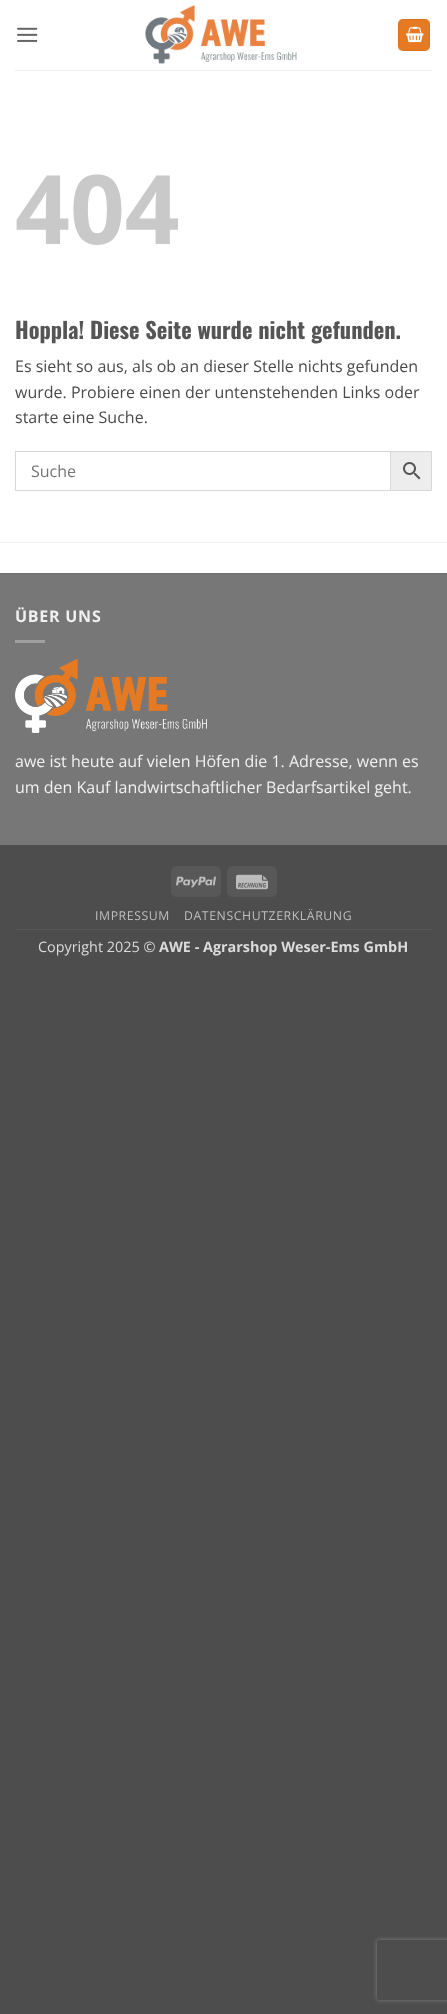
<!DOCTYPE html>
<meta charset="utf-8">
<style>body { margin: 0 } canvas { display: block }</style>
<canvas id="canvas" width="447" height="2014"></canvas>
<script type="module">
  const canvas = document.getElementById("canvas");
  const g = canvas.getContext("2d");
  g.miterLimit = 4;
  g.fontKerning = "normal";
  function drawText(s, x, y, [font, color]) {
    g.font = font;
    g.fillStyle = color;
    g.fillText(s, x, y);
  }
  function fillBox(x, y, w, h, color) {
    g.fillStyle = color;
    g.fillRect(x, y, w, h);
  }
  function fillRounded(x, y, w, h, r, color) {
    g.fillStyle = color;
    g.beginPath();
    g.roundRect(x, y, w, h, r);
    g.fill();
  }
  async function drawPicture(src, x, y, w, h) {
    const img = new Image();
    img.src = src;
    await img.decode();
    g.drawImage(img, x, y, w, h);
  }

  const s1 = ["bold 96px Open Sans", "#C9C9C9"];
  const s2 = ["bold 22.4px Oswald", "#555555"];
  const s3 = ["16px Open Sans", "#4A4A4A"];
  const s4 = ["16px Open Sans", "#757575"];
  const s5 = ["bold 16px Open Sans", "#F1F1F1"];
  const s6 = ["16px Open Sans", "#F1F1F1"];
  const s7 = ["12.25px Open Sans", "#BFBFBF"];
  const s8 = ["14.4px Open Sans", "#DBDBDB"];
  const s9 = ["bold 14.4px Open Sans", "#DBDBDB"];

  fillBox(0, 0, 447, 2014, "#4D4D4D");
  fillBox(0, 0, 447, 573, "#FFFFFF");
  await drawPicture("pic1.png", 17, 27, 21, 15);
  await drawPicture("pic2.png", 145, 5, 152, 59);
  fillRounded(398, 19, 32, 32, 5, "#E67A22");
  g.strokeStyle = "rgba(0, 0, 0, 0.05)";
  g.strokeRect(398.5, 19.5, 31, 31);
  await drawPicture("pic3.png", 406, 26, 18, 17);
  fillBox(15, 70, 417, 1, "#EDEDED");
  drawText("404", 15, 244, s1);
  drawText("Hoppla! Diese Seite wurde nicht gefunden.", 15, 339, s2);
  drawText("Es sieht so aus, als ob an dieser Stelle nichts gefunden", 15, 372, s3);
  drawText("wurde. Probiere einen der untenstehenden Links oder", 15, 398, s3);
  drawText("starte eine Suche.", 15, 423, s3);
  g.fillStyle = "#EDEDED";
  g.beginPath();
  g.rect(390.5, 451.5, 41, 39);
  g.fill();
  g.strokeStyle = "#D8D8D8";
  g.stroke();
  g.strokeRect(15.5, 451.5, 375, 39);
  drawText("Suche", 31, 477, s4);
  await drawPicture("pic4.png", 403, 462, 18, 18);
  fillBox(0, 542, 447, 1, "#F2F2F2");
  fillBox(0, 574, 447, 271, "#777777");
  fillBox(0, 573, 447, 1, "#717171");
  g.letterSpacing = "0.75px";
  drawText("ÜBER UNS", 15, 622, s5);
  fillBox(15, 640, 30, 3, "#A0A0A0");
  await drawPicture("pic5.png", 15, 659, 192, 74);
  g.letterSpacing = "0px";
  drawText("awe ist heute auf vielen Höfen die 1. Adresse, wenn es", 15, 767, s6);
  drawText("um den Kauf landwirtschaftlicher Bedarfsartikel geht.", 15, 793, s6);
  fillRounded(171, 866, 50, 31, 5, "#585858");
  await drawPicture("pic6.png", 176, 876, 40, 12);
  fillRounded(227, 866, 50, 31, 5, "#585858");
  await drawPicture("pic7.png", 236, 874, 32, 16);
  fillBox(15, 929, 417, 1, "#585858");
  g.letterSpacing = "0.6px";
  drawText("IMPRESSUM", 95, 920, s7);
  drawText("DATENSCHUTZERKLÄRUNG", 184, 920, s7);
  g.letterSpacing = "0px";
  drawText("Copyright 2025 ©", 38, 952, s8);
  drawText("AWE - Agrarshop Weser-Ems GmbH", 159, 952, s9);
  g.save();
  g.beginPath();
  g.moveTo(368, 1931);
  g.lineTo(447, 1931);
  g.lineTo(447, 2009);
  g.lineTo(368, 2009);
  g.closePath();
  g.moveTo(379, 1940);
  g.lineTo(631, 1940);
  g.bezierCurveTo(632, 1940, 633, 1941, 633, 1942);
  g.lineTo(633, 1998);
  g.bezierCurveTo(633, 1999, 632, 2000, 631, 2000);
  g.lineTo(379, 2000);
  g.bezierCurveTo(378, 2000, 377, 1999, 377, 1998);
  g.lineTo(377, 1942);
  g.bezierCurveTo(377, 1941, 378, 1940, 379, 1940);
  g.closePath();
  g.clip("evenodd");
  g.fillStyle = "#808080";
  g.filter = "blur(2.5px)";
  g.beginPath();
  g.roundRect(377, 1940, 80, 60, 2);
  g.fill();
  g.filter = "none";
  g.restore();
</script>
